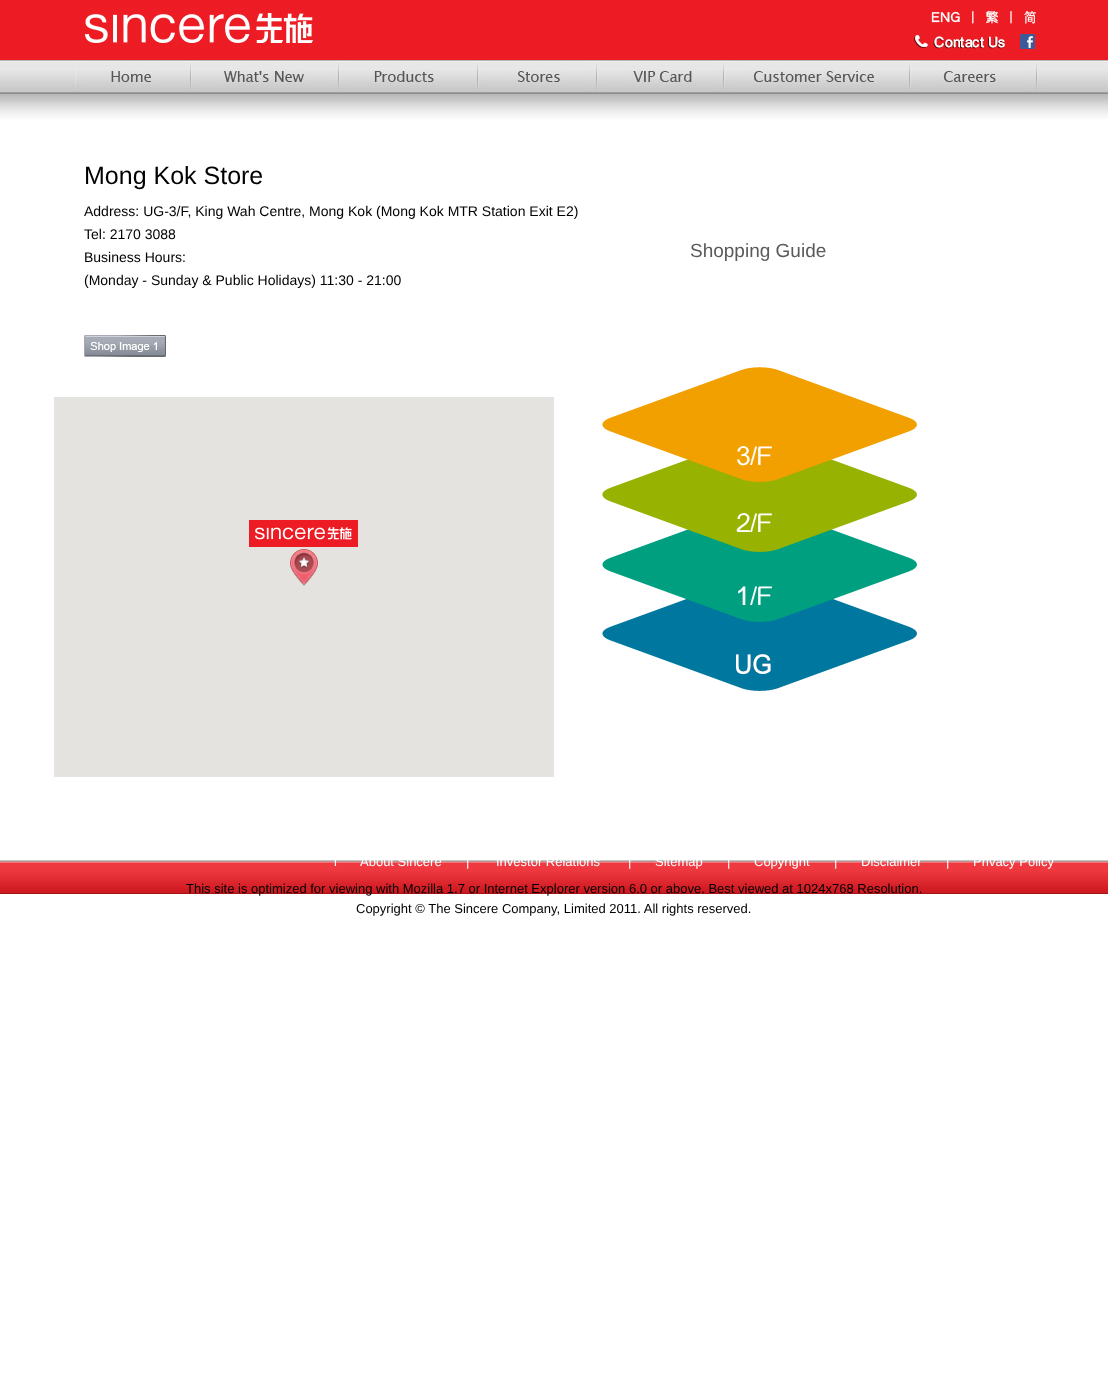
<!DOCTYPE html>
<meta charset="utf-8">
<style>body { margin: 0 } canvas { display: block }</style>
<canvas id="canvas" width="1108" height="1387"></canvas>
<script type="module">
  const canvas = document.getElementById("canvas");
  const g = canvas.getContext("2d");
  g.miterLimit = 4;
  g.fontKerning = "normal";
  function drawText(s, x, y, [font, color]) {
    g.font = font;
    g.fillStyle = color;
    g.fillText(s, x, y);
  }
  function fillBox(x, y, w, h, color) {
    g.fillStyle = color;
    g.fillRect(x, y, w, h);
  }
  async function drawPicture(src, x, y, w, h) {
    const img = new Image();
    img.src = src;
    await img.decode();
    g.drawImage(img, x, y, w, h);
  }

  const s1 = ["25px Liberation Sans", "#000000"];
  const s2 = ["14px Liberation Sans", "#000000"];
  const s3 = ["19px Liberation Sans", "#5A5A5A"];
  const s4 = ["13px Liberation Sans", "#FFFFFF"];
  const s5 = ["13px Liberation Sans", "#000000"];

  fillBox(0, 0, 1108, 1387, "#FFFFFF");
  await drawPicture("pic1.png", 0, 0, 910, 60);
  await drawPicture("pic2.png", 910, 0, 63, 29);
  await drawPicture("pic3.png", 973, 0, 38, 29);
  await drawPicture("pic4.png", 1011, 0, 26, 29);
  await drawPicture("pic5.png", 910, 29, 105, 31);
  await drawPicture("pic6.png", 1015, 29, 22, 31);
  fillBox(1037, 0, 71, 60, "#ED1B24");
  await drawPicture("pic7.png", 0, 60, 75, 34);
  await drawPicture("pic8.png", 75, 60, 116, 34);
  await drawPicture("pic9.png", 191, 60, 148, 34);
  await drawPicture("pic10.png", 339, 60, 139, 34);
  await drawPicture("pic11.png", 478, 60, 119, 34);
  await drawPicture("pic12.png", 597, 60, 127, 34);
  await drawPicture("pic13.png", 724, 60, 186, 34);
  await drawPicture("pic14.png", 910, 60, 127, 34);
  await drawPicture("pic15.png", 1037, 60, 71, 34);
  await drawPicture("pic16.png", 0, 94, 1108, 25);
  drawText("Mong Kok Store", 84, 184, s1);
  drawText("Address: UG-3/F, King Wah Centre, Mong Kok (Mong Kok MTR Station Exit E2)", 84, 216, s2);
  drawText("Tel: 2170 3088", 84, 239, s2);
  drawText("Business Hours:", 84, 262, s2);
  drawText("(Monday - Sunday & Public Holidays) 11:30 - 21:00", 84, 285, s2);
  await drawPicture("pic17.png", 84, 335, 82, 22);
  fillBox(54, 397, 500, 380, "#E5E3DF");
  await drawPicture("pic18.png", 249, 520, 109, 66);
  drawText("Shopping Guide", 690, 257, s3);
  await drawPicture("pic22.png", 602, 599, 315, 92);
  await drawPicture("pic21.png", 602, 529, 315, 93);
  await drawPicture("pic20.png", 602, 459, 315, 93);
  await drawPicture("pic19.png", 602, 367, 315, 115);
  await drawPicture("pic23.png", 0, 860, 1108, 34);
  drawText("i", 334, 866, s4);
  drawText("About Sincere", 360, 866, s4);
  drawText("|", 466, 866, s4);
  drawText("Investor Relations", 496, 866, s4);
  drawText("|", 628, 866, s4);
  drawText("Sitemap", 655, 866, s4);
  drawText("|", 727, 866, s4);
  drawText("Copyright", 754, 866, s4);
  drawText("|", 834, 866, s4);
  drawText("Disclaimer", 861, 866, s4);
  drawText("|", 946, 866, s4);
  drawText("Privacy Policy", 973, 866, s4);
  drawText("This site is optimized for viewing with Mozilla 1.7 or Internet Explorer version 6.0 or above. Best viewed at 1024x768 Resolution.", 186, 893, s5);
  drawText("Copyright © The Sincere Company, Limited 2011. All rights reserved.", 356, 913, s5);
</script>
